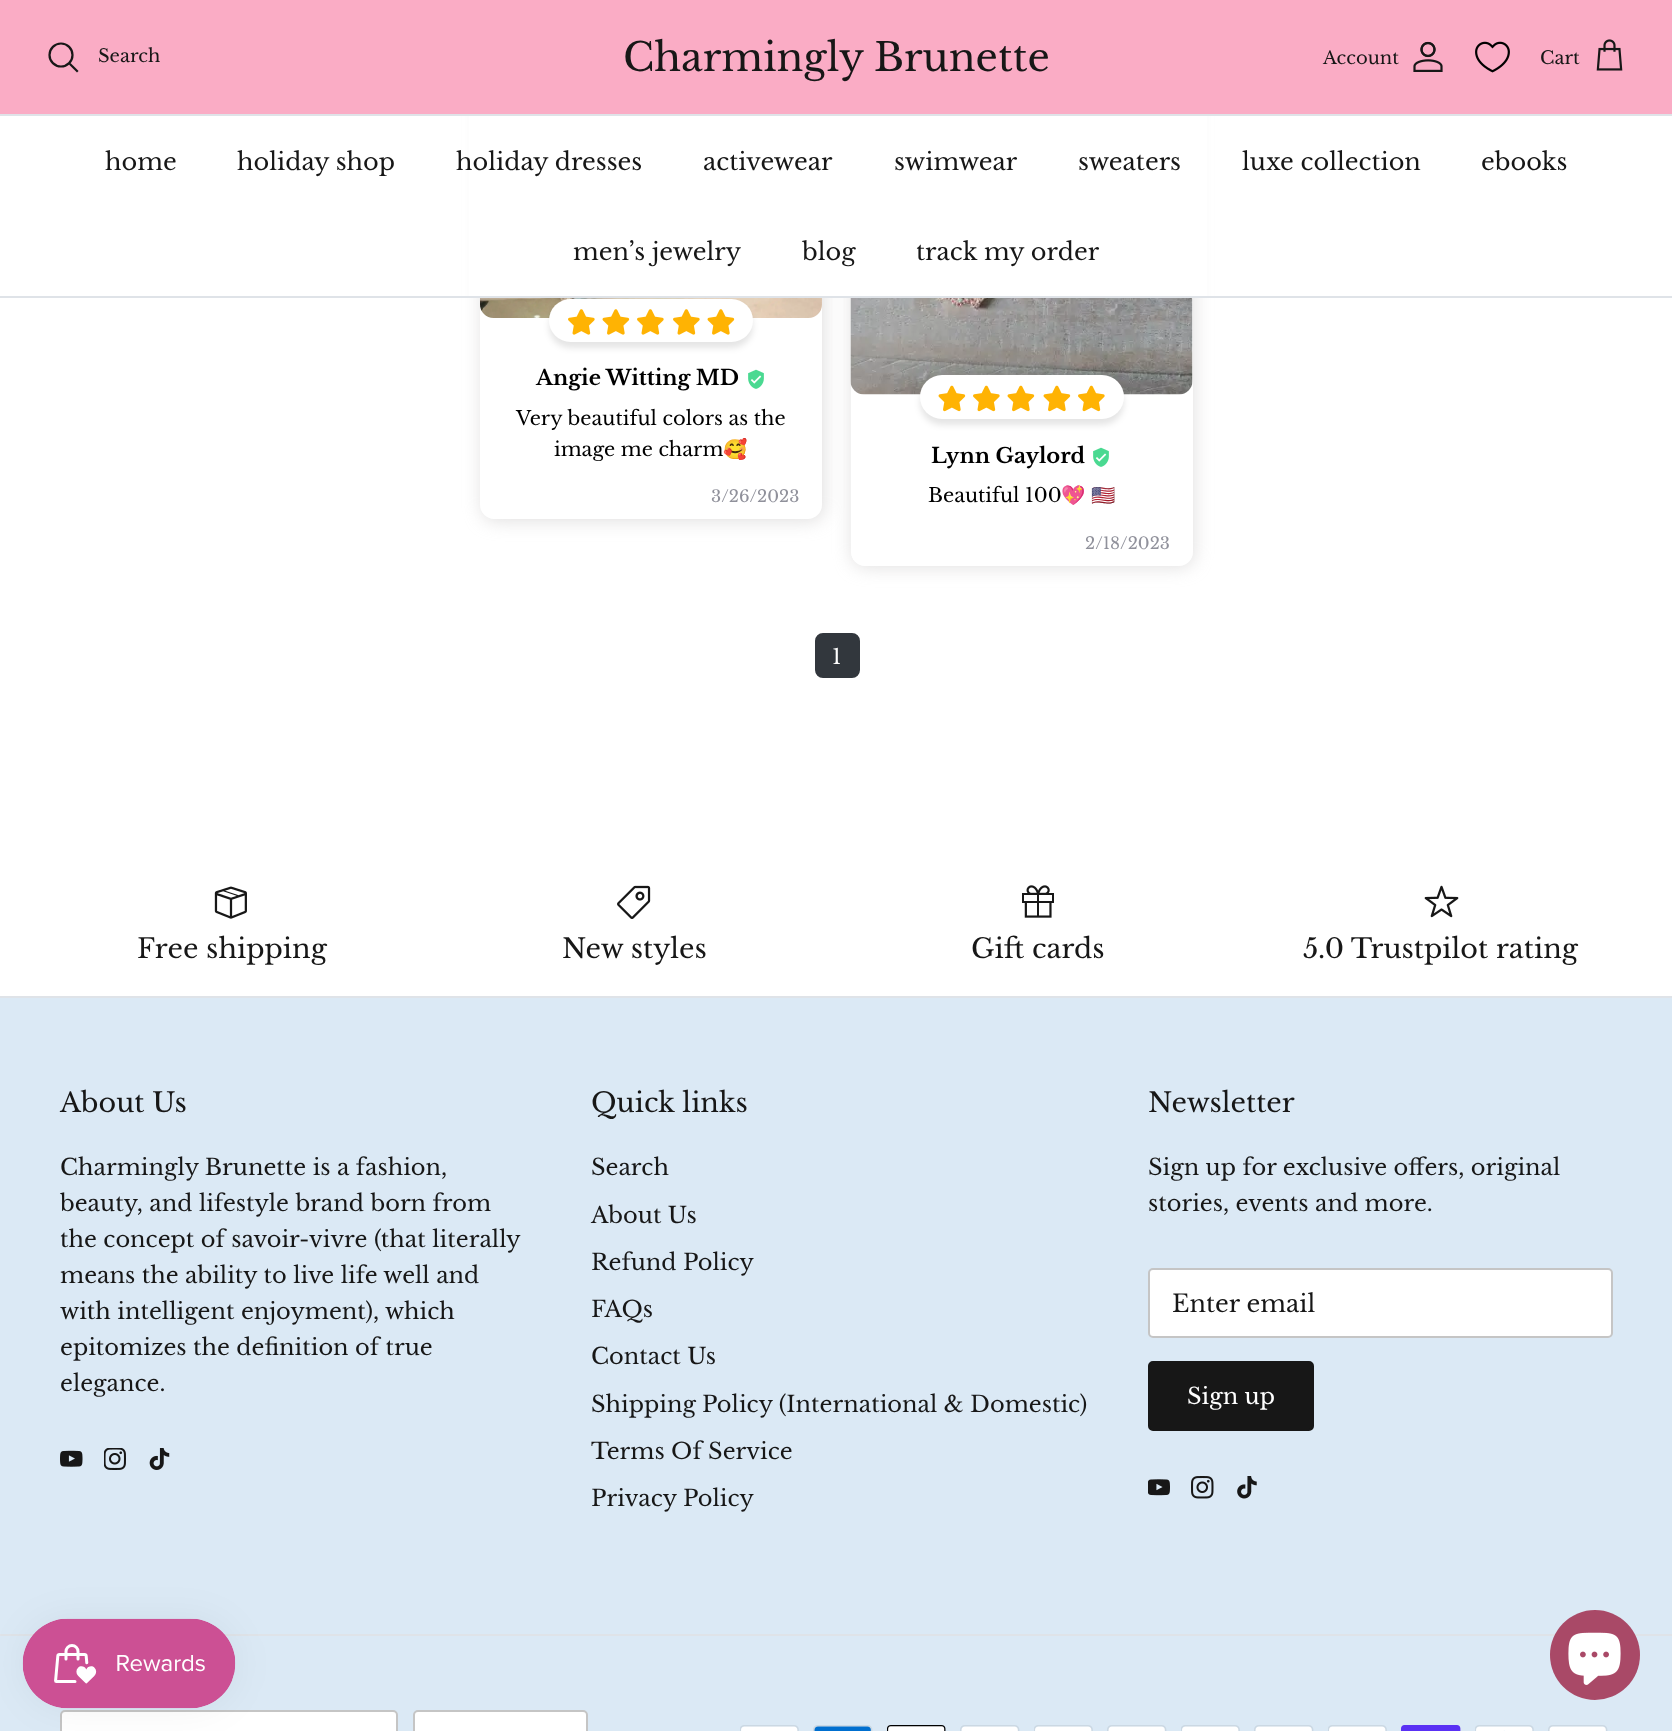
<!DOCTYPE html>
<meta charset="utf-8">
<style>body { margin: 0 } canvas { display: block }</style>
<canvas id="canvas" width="1672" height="1731"></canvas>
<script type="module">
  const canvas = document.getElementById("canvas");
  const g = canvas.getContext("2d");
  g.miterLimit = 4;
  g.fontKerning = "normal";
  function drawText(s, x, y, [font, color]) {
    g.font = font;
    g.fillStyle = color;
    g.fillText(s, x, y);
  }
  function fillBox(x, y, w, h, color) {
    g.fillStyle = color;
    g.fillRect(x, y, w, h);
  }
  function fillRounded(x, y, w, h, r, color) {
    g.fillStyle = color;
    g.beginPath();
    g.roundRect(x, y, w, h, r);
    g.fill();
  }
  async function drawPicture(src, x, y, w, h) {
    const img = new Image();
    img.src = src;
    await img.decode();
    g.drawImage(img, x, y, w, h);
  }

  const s1 = ["18px Libre Baskerville", "#171717"];
  const s2 = ["39px Libre Baskerville", "#171717"];
  const s3 = ["24px Libre Baskerville", "#171717"];
  const s4 = ["bold 21px Libre Baskerville", "#000000"];
  const s5 = ["19.5px Libre Baskerville", "#000000"];
  const s6 = ["19.5px Noto Color Emoji", "#000000"];
  const s7 = ["16.5px Libre Baskerville", "#90919B"];
  const s8 = ["21px Libre Baskerville", "#FFFFFF"];
  const s9 = ["27px Libre Baskerville", "#171717"];
  const s10 = ["22.5px Libre Baskerville", "#171717"];
  const s11 = ["22.5px Libre Baskerville", "#FFFFFF"];

  fillBox(0, 0, 1672, 1731, "#FFFFFF");
  g.save();
  g.beginPath();
  g.moveTo(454, 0);
  g.lineTo(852, 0);
  g.lineTo(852, 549);
  g.lineTo(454, 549);
  g.closePath();
  g.moveTo(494, -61);
  g.lineTo(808, -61);
  g.bezierCurveTo(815.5, -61, 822, -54.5, 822, -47);
  g.lineTo(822, 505);
  g.bezierCurveTo(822, 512.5, 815.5, 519, 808, 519);
  g.lineTo(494, 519);
  g.bezierCurveTo(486.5, 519, 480, 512.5, 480, 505);
  g.lineTo(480, -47);
  g.bezierCurveTo(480, -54.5, 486.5, -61, 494, -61);
  g.closePath();
  g.clip("evenodd");
  g.fillStyle = "rgba(195, 193, 193, 0.51)";
  g.filter = "blur(9px)";
  g.beginPath();
  g.roundRect(482, -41, 342, 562, 14);
  g.fill();
  g.filter = "none";
  g.restore();
  g.save();
  g.beginPath();
  g.moveTo(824, 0);
  g.lineTo(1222, 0);
  g.lineTo(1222, 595);
  g.lineTo(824, 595);
  g.closePath();
  g.moveTo(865, -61);
  g.lineTo(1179, -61);
  g.bezierCurveTo(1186.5, -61, 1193, -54.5, 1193, -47);
  g.lineTo(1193, 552);
  g.bezierCurveTo(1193, 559.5, 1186.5, 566, 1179, 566);
  g.lineTo(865, 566);
  g.bezierCurveTo(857.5, 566, 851, 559.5, 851, 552);
  g.lineTo(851, -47);
  g.bezierCurveTo(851, -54.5, 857.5, -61, 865, -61);
  g.closePath();
  g.clip("evenodd");
  g.fillStyle = "rgba(195, 193, 193, 0.51)";
  g.filter = "blur(9px)";
  g.beginPath();
  g.roundRect(852, -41, 342, 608, 14);
  g.fill();
  g.filter = "none";
  g.restore();
  fillRounded(851, -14, 342, 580, 14, "rgba(255, 255, 255, 0.5)");
  fillBox(0, 0, 1672, 114, "#FAACC5");
  fillBox(0, 114, 1672, 2, "#DFE3E8");
  g.beginPath();
  g.arc(61, 55, 11.5, 0, Math.PI * 2);
  g.strokeStyle = "#171717";
  g.lineWidth = 2.2;
  g.stroke();
  drawText("Search", 98, 62, s1);
  g.beginPath();
  g.moveTo(70.5, 64.5);
  g.lineTo(77, 71);
  g.lineCap = "square";
  g.stroke();
  drawText("Charmingly Brunette", 623, 71, s2);
  drawText("Account", 1323, 64, s1);
  await drawPicture("pic1.png", 1413, 41, 30, 31);
  await drawPicture("pic2.png", 1475, 41, 35, 32);
  drawText("Cart", 1540, 64, s1);
  await drawPicture("pic3.png", 1596, 39, 27, 32);
  await drawPicture("pic6.png", 480, 298, 342, 20);
  g.fillStyle = "rgba(0, 0, 0, 0.1)";
  g.filter = "blur(3px)";
  g.beginPath();
  g.roundRect(549, 305, 204, 43, 21.5);
  g.fill();
  g.filter = "none";
  fillBox(0, 296, 1672, 2, "#DFE3E8");
  fillBox(469, 116, 738, 180, "#FFFFFF");
  drawText("home", 105, 170, s3);
  drawText("holiday shop", 237, 170, s3);
  drawText("holiday dresses", 456, 170, s3);
  drawText("activewear", 703, 170, s3);
  drawText("swimwear", 894, 170, s3);
  drawText("sweaters", 1078, 170, s3);
  drawText("luxe collection", 1242, 170, s3);
  drawText("ebooks", 1481, 170, s3);
  drawText("men’s jewelry", 573, 260, s3);
  drawText("blog", 802, 260, s3);
  drawText("track my order", 916, 260, s3);
  fillRounded(549, 299, 204, 43, 21.5, "#FFFFFF");
  await drawPicture("pic4.png", 568, 309, 27, 26);
  await drawPicture("pic5.png", 602, 309, 28, 26);
  await drawPicture("pic4.png", 637, 309, 27, 26);
  await drawPicture("pic4.png", 673, 309, 27, 26);
  await drawPicture("pic5.png", 707, 309, 28, 26);
  drawText("Angie Witting MD", 536, 385, s4);
  await drawPicture("pic7.png", 748, 369, 16, 20);
  drawText("Very beautiful colors as the", 516, 425, s5);
  drawText("image me charm", 554, 456, s5);
  drawText("🥰", 723, 456, s6);
  drawText("3/26/2023", 711, 502, s7);
  await drawPicture("pic8.png", 850, 298, 343, 97);
  g.fillStyle = "rgba(0, 0, 0, 0.1)";
  g.filter = "blur(3px)";
  g.beginPath();
  g.roundRect(920, 381, 204, 44, 22);
  g.fill();
  g.filter = "none";
  fillRounded(920, 375, 204, 44, 22, "#FFFFFF");
  await drawPicture("pic9.png", 938, 385, 28, 27);
  await drawPicture("pic10.png", 973, 385, 27, 27);
  await drawPicture("pic9.png", 1007, 385, 28, 27);
  await drawPicture("pic9.png", 1043, 385, 28, 27);
  await drawPicture("pic10.png", 1078, 385, 27, 27);
  drawText("Lynn Gaylord", 931, 463, s4);
  await drawPicture("pic7.png", 1093, 447, 16, 20);
  drawText("Beautiful 100", 928, 502, s5);
  drawText("💖", 1061, 502, s6);
  drawText("🇺🇲", 1091, 502, s6);
  drawText("2/18/2023", 1085, 549, s7);
  g.fillStyle = "#32373D";
  g.beginPath();
  g.roundRect(816, 634, 43, 43, 7);
  g.fill();
  g.strokeStyle = "#32373D";
  g.lineWidth = 2;
  g.stroke();
  drawText("1", 832, 664, s8);
  fillBox(0, 998, 1672, 733, "#DBE9F5");
  await drawPicture("pic11.png", 214, 886, 33, 33);
  drawText("Free shipping", 137, 958, s9);
  await drawPicture("pic12.png", 617, 885, 34, 34);
  drawText("New styles", 562, 958, s9);
  await drawPicture("pic13.png", 1022, 885, 32, 33);
  drawText("Gift cards", 971, 958, s9);
  await drawPicture("pic14.png", 1424, 885, 35, 33);
  drawText("5.0 Trustpilot rating", 1303, 958, s9);
  fillBox(0, 996, 1672, 2, "#DFE3E8");
  drawText("About Us", 60, 1112, s9);
  drawText("Charmingly Brunette is a fashion,", 60, 1175, s10);
  drawText("beauty, and lifestyle brand born from", 60, 1211, s10);
  drawText("the concept of savoir-vivre (that literally", 60, 1247, s10);
  drawText("means the ability to live life well and", 60, 1283, s10);
  drawText("with intelligent enjoyment), which", 60, 1319, s10);
  drawText("epitomizes the definition of true", 60, 1355, s10);
  drawText("elegance.", 60, 1391, s10);
  await drawPicture("pic15.png", 60, 1450, 23, 17);
  await drawPicture("pic16.png", 104, 1448, 22, 22);
  await drawPicture("pic17.png", 149, 1448, 21, 22);
  drawText("Quick links", 591, 1112, s9);
  drawText("Search", 591, 1175, s10);
  drawText("About Us", 591, 1223, s10);
  drawText("Refund Policy", 591, 1270, s10);
  drawText("FAQs", 591, 1317, s10);
  drawText("Contact Us", 591, 1364, s10);
  drawText("Shipping Policy (International & Domestic)", 591, 1412, s10);
  drawText("Terms Of Service", 591, 1459, s10);
  drawText("Privacy Policy", 591, 1506, s10);
  drawText("Newsletter", 1148, 1112, s9);
  drawText("Sign up for exclusive offers, original", 1148, 1175, s10);
  drawText("stories, events and more.", 1148, 1211, s10);
  g.fillStyle = "#FFFFFF";
  g.beginPath();
  g.roundRect(1149, 1269, 463, 68, 4);
  g.fill();
  g.strokeStyle = "#C5C5C5";
  g.stroke();
  drawText("Enter email", 1172, 1312, s3);
  g.beginPath();
  g.roundRect(1149, 1362, 164, 68, 4);
  g.fill();
  g.strokeStyle = "#171717";
  g.stroke();
  drawText("Sign up", 1187, 1404, s11);
  await drawPicture("pic18.png", 1148, 1479, 22, 17);
  await drawPicture("pic19.png", 1191, 1476, 23, 23);
  await drawPicture("pic20.png", 1237, 1476, 20, 23);
  fillBox(0, 1634, 1672, 2, "#DFE3E8");
  g.fillStyle = "#FFFFFF";
  g.beginPath();
  g.roundRect(61, 1711, 336, 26, 4);
  g.fill();
  g.strokeStyle = "#C5C5C5";
  g.stroke();
  g.beginPath();
  g.roundRect(414, 1711, 173, 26, 4);
  g.fill();
  g.stroke();
  await drawPicture("pic21.png", 740, 1725, 59, 6);
  await drawPicture("pic22.png", 813, 1725, 60, 6);
  await drawPicture("pic23.png", 887, 1725, 59, 6);
  await drawPicture("pic24.png", 960, 1725, 60, 6);
  await drawPicture("pic21.png", 1034, 1725, 59, 6);
  await drawPicture("pic24.png", 1107, 1725, 60, 6);
  await drawPicture("pic21.png", 1181, 1725, 59, 6);
  await drawPicture("pic24.png", 1254, 1725, 60, 6);
  await drawPicture("pic21.png", 1328, 1725, 59, 6);
  await drawPicture("pic25.png", 1401, 1725, 60, 6);
  await drawPicture("pic26.png", 1475, 1725, 59, 6);
  await drawPicture("pic24.png", 1548, 1725, 60, 6);
  g.fillStyle = "rgba(0, 0, 0, 0.05)";
  g.filter = "blur(19px)";
  g.beginPath();
  g.roundRect(23, 1619, 213, 90, 45);
  g.fill();
  g.filter = "none";
  await drawPicture("pic27.png", 22, 1618, 214, 91);
  g.fillStyle = "#A94967";
  g.beginPath();
  g.arc(1595, 1655, 45, 0, Math.PI * 2);
  g.fill();
  await drawPicture("pic28.png", 1568, 1632, 53, 53);
</script>
